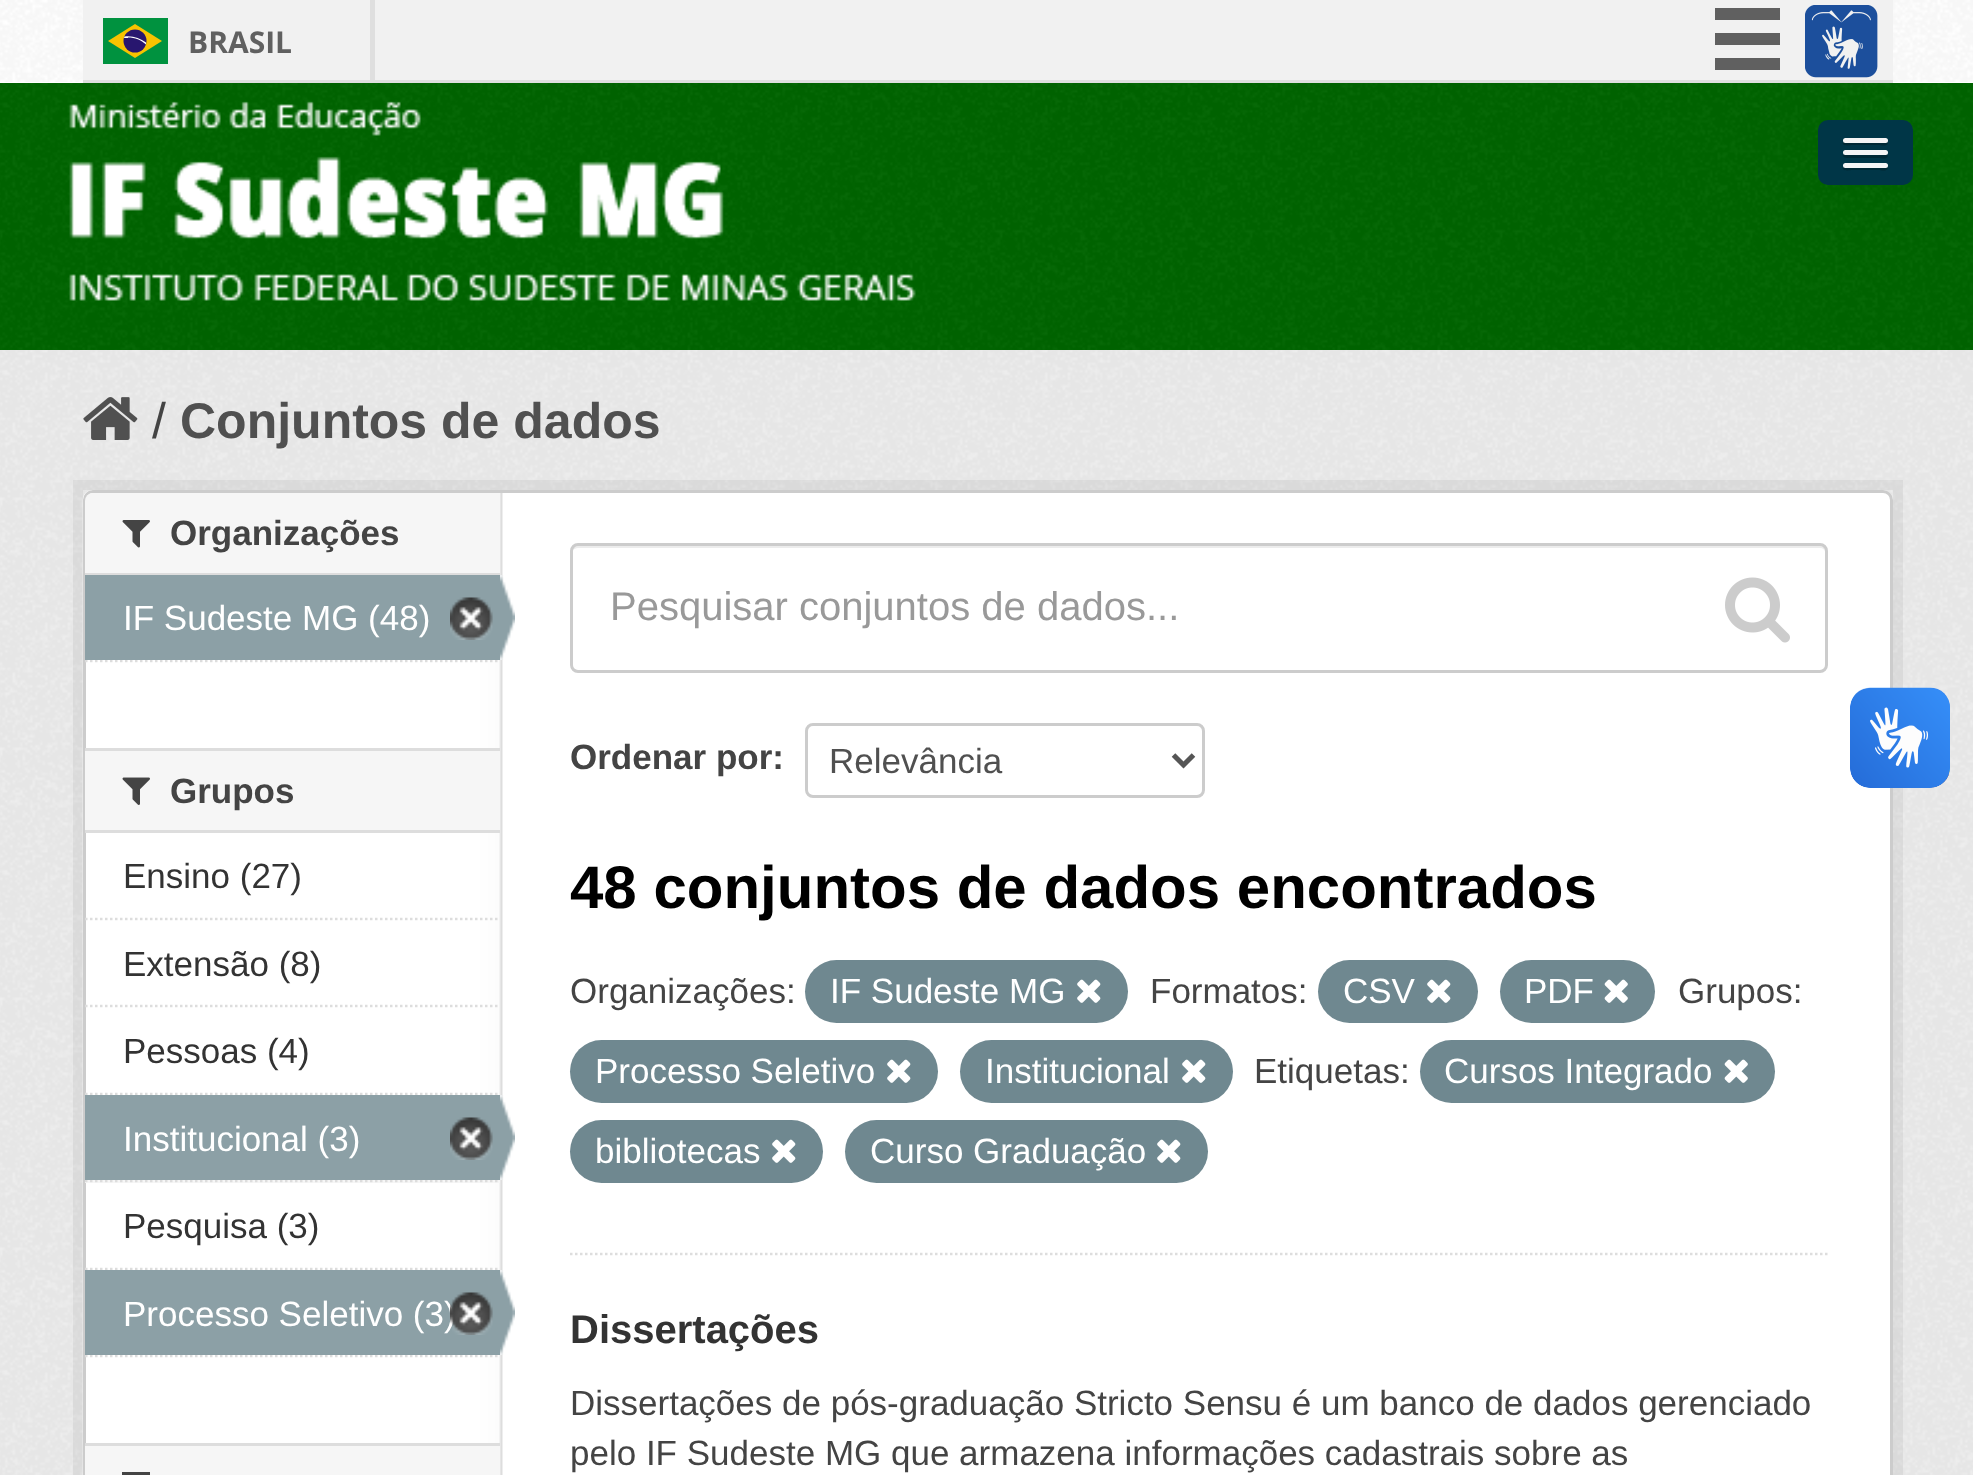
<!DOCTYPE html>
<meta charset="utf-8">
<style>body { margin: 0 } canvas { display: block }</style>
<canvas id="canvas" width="1973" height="1475"></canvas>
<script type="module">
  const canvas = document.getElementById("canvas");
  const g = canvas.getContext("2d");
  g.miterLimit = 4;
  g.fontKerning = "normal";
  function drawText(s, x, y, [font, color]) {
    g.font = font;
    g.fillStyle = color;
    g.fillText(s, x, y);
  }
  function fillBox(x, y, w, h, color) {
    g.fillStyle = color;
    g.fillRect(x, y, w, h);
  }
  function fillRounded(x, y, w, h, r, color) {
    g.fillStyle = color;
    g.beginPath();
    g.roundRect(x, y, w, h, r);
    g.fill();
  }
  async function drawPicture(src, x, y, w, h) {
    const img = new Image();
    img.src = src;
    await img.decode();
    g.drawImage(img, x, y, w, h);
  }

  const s1 = ["bold 30px Open Sans", "#606060"];
  const s2 = ["50px Liberation Sans", "#444444"];
  const s3 = ["bold 50px Liberation Sans", "#505050"];
  const s4 = ["bold 35px Liberation Sans", "#444444"];
  const s5 = ["35px Liberation Sans", "#FFFFFF"];
  const s6 = ["35px Liberation Sans", "#333333"];
  const s7 = ["40px Liberation Sans", "#999999"];
  const s8 = ["35px Liberation Sans", "#505050"];
  const s9 = ["bold 60px Liberation Sans", "#000000"];
  const s10 = ["35px Liberation Sans", "#444444"];
  const s11 = ["bold 40px Liberation Sans", "#333333"];

  fillBox(0, 0, 1973, 1475, "#FFFFFF");
  await drawPicture("pic1.png", 0, 0, 1973, 82);
  fillBox(83, 0, 1810, 80, "#F1F1F1");
  fillBox(83, 80, 1810, 3, "#DFDFDF");
  fillBox(370, 0, 5, 80, "#DFDFDF");
  fillBox(103, 18, 65, 46, "#00923F");
  g.fillStyle = "#F8C300";
  g.beginPath();
  g.moveTo(135, 24);
  g.lineTo(108, 41);
  g.lineTo(135, 58);
  g.lineTo(162, 41);
  g.closePath();
  g.fill();
  g.fillStyle = "#28166F";
  g.beginPath();
  g.arc(135, 41, 11.5, 0, Math.PI * 2);
  g.fill();
  g.fillStyle = "#FFFFFF";
  g.beginPath();
  g.moveTo(128, 37.5);
  g.bezierCurveTo(135, 37.5, 141, 40, 146, 44.5);
  g.lineTo(146, 42.5);
  g.bezierCurveTo(140, 38, 132.5, 35.5, 124.5, 36.5);
  g.lineTo(124, 38);
  g.lineTo(128, 38);
  g.closePath();
  g.fill();
  drawText("BRASIL", 188, 53, s1);
  fillBox(1715, 8, 65, 12, "#606060");
  fillBox(1715, 33, 65, 12, "#606060");
  fillBox(1715, 58, 65, 12, "#606060");
  await drawPicture("pic2.png", 1805, 5, 73, 73);
  fillBox(0, 83, 1973, 267, "#006600");
  await drawPicture("pic3.png", 0, 83, 1973, 267);
  await drawPicture("pic4.png", 69, 101, 847, 200);
  fillRounded(1818, 120, 95, 65, 10, "#003647");
  g.fillStyle = "#002935";
  g.beginPath();
  g.moveTo(1843, 142);
  g.bezierCurveTo(1841, 147, 1851, 145, 1852, 145);
  g.lineTo(1879, 145);
  g.bezierCurveTo(1880, 145, 1887, 147, 1888, 143);
  g.lineTo(1887, 141);
  g.lineTo(1885, 142);
  g.lineTo(1845, 142);
  g.closePath();
  g.fill();
  fillRounded(1843, 138, 45, 5, 2.5, "#F5F5F5");
  g.fillStyle = "#002935";
  g.beginPath();
  g.moveTo(1843, 154);
  g.bezierCurveTo(1841, 159, 1852, 158, 1852, 158);
  g.lineTo(1879, 158);
  g.bezierCurveTo(1880, 158, 1887, 160, 1888, 156);
  g.lineTo(1887, 154);
  g.lineTo(1885, 155);
  g.bezierCurveTo(1882, 155, 1845, 156, 1843, 154);
  g.closePath();
  g.fill();
  fillRounded(1843, 150, 45, 5, 2.5, "#F5F5F5");
  g.fillStyle = "#002935";
  g.beginPath();
  g.moveTo(1843, 167);
  g.bezierCurveTo(1841, 172, 1851, 170, 1852, 170);
  g.lineTo(1879, 170);
  g.bezierCurveTo(1880, 170, 1887, 172, 1888, 168);
  g.lineTo(1887, 166);
  g.lineTo(1885, 167);
  g.lineTo(1845, 167);
  g.closePath();
  g.fill();
  fillRounded(1843, 163, 45, 5, 2.5, "#F5F5F5");
  fillBox(0, 350, 1973, 1125, "#EEEEEE");
  await drawPicture("pic5.png", 0, 350, 1973, 1125);
  await drawPicture("pic6.png", 83, 397, 55, 43);
  drawText("/", 152, 438, s2);
  drawText("Conjuntos de dados", 180, 438, s3);
  g.strokeStyle = "rgba(0, 0, 0, 0.05)";
  g.lineWidth = 10;
  g.strokeRect(78, 485, 1820, 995);
  fillRounded(83, 490, 1810, 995, 10, "#FFFFFF");
  await drawPicture("pic7.png", 82, 490, 421, 985);
  g.beginPath();
  g.roundRect(84.5, 491.5, 1807, 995, 8.5);
  g.strokeStyle = "#CCCCCC";
  g.lineWidth = 3;
  g.stroke();
  g.fillStyle = "#F6F6F6";
  g.beginPath();
  g.roundRect(85, 493, 415, 82, [8, 0, 0, 0]);
  g.fill();
  fillBox(85, 573, 415, 2, "#DDDDDD");
  await drawPicture("pic8.png", 122, 520, 28, 28);
  drawText("Organizações", 170, 545, s4);
  g.beginPath();
  g.moveTo(85, 661);
  g.lineTo(500, 661);
  g.strokeStyle = "#DDDDDD";
  g.lineWidth = 2.5;
  g.setLineDash([2.5, 2.5]);
  g.stroke();
  fillBox(85, 575, 415, 85, "#8CA0A6");
  drawText("IF Sudeste MG (48)", 123, 630, s5);
  await drawPicture("pic9.png", 450, 597, 43, 43);
  await drawPicture("pic10.png", 500, 575, 15, 85);
  fillBox(85, 751, 415, 79, "#F6F6F6");
  fillBox(85, 748, 415, 3, "#DDDDDD");
  fillBox(85, 830, 415, 3, "#DDDDDD");
  await drawPicture("pic11.png", 122, 777, 28, 28);
  drawText("Grupos", 170, 803, s4);
  g.beginPath();
  g.moveTo(85, 919);
  g.lineTo(500, 919);
  g.stroke();
  drawText("Ensino (27)", 123, 888, s6);
  g.beginPath();
  g.moveTo(85, 1006);
  g.lineTo(500, 1006);
  g.stroke();
  drawText("Extensão (8)", 123, 976, s6);
  g.beginPath();
  g.moveTo(85, 1094);
  g.lineTo(500, 1094);
  g.stroke();
  drawText("Pessoas (4)", 123, 1063, s6);
  fillBox(85, 1180, 415, 3, "#F6F6F6");
  g.beginPath();
  g.moveTo(85, 1181);
  g.lineTo(500, 1181);
  g.stroke();
  fillBox(85, 1095, 415, 85, "#8CA0A6");
  drawText("Institucional (3)", 123, 1151, s5);
  await drawPicture("pic9.png", 450, 1117, 43, 43);
  await drawPicture("pic12.png", 500, 1095, 15, 85);
  g.beginPath();
  g.moveTo(85, 1269);
  g.lineTo(500, 1269);
  g.stroke();
  drawText("Pesquisa (3)", 123, 1238, s6);
  g.beginPath();
  g.moveTo(85, 1356);
  g.lineTo(500, 1356);
  g.stroke();
  fillBox(85, 1270, 415, 85, "#8CA0A6");
  drawText("Processo Seletivo (3)", 123, 1326, s5);
  await drawPicture("pic13.png", 450, 1292, 43, 43);
  await drawPicture("pic12.png", 500, 1270, 15, 85);
  fillBox(85, 1446, 415, 29, "#F6F6F6");
  fillBox(85, 1443, 415, 3, "#DDDDDD");
  fillBox(122, 1472, 28, 3, "#444444");
  g.beginPath();
  g.moveTo(570, 1254);
  g.lineTo(1827.5, 1254);
  g.stroke();
  g.fillStyle = "#ECECEC";
  g.beginPath();
  g.moveTo(578, 548);
  g.lineTo(1820, 548);
  g.bezierCurveTo(1823, 548, 1825, 550, 1825, 552);
  g.bezierCurveTo(1825, 549, 1824, 545, 1820, 545);
  g.lineTo(578, 545);
  g.bezierCurveTo(575, 545, 573, 547, 573, 550);
  g.bezierCurveTo(574, 549, 576, 548, 578, 548);
  g.closePath();
  g.fill();
  g.beginPath();
  g.roundRect(571.5, 544.5, 1255, 127, 6.5);
  g.strokeStyle = "#CCCCCC";
  g.lineWidth = 3;
  g.setLineDash([]);
  g.stroke();
  drawText("Pesquisar conjuntos de dados...", 610, 620, s7);
  await drawPicture("pic14.png", 1725, 577, 65, 66);
  drawText("Ordenar por:", 570, 769, s4);
  g.beginPath();
  g.roundRect(806.5, 724.5, 397, 72, 6.5);
  g.stroke();
  g.beginPath();
  g.moveTo(1173.5, 755);
  g.lineTo(1183.5, 765);
  g.lineTo(1193.5, 755);
  g.strokeStyle = "#555555";
  g.lineWidth = 5;
  g.stroke();
  drawText("Relevância", 829, 773, s8);
  drawText("48 conjuntos de dados encontrados", 570, 908, s9);
  drawText("Organizações:", 570, 1003, s10);
  fillRounded(805, 960, 323, 63, 31.5, "#6F8890");
  drawText("IF Sudeste MG", 830, 1003, s5);
  await drawPicture("pic15.png", 1077, 979, 24, 24);
  drawText("Formatos:", 1150, 1003, s10);
  fillRounded(1318, 960, 160, 63, 31.5, "#6F8890");
  drawText("CSV", 1343, 1003, s5);
  await drawPicture("pic15.png", 1427, 979, 24, 24);
  fillRounded(1500, 960, 155, 63, 31.5, "#6F8890");
  drawText("PDF", 1524, 1003, s5);
  await drawPicture("pic16.png", 1604, 979, 24, 24);
  drawText("Grupos:", 1678, 1003, s10);
  fillRounded(570, 1040, 368, 63, 31.5, "#6F8890");
  drawText("Processo Seletivo", 595, 1083, s5);
  await drawPicture("pic15.png", 887, 1059, 24, 24);
  fillRounded(960, 1040, 273, 63, 31.5, "#6F8890");
  drawText("Institucional", 985, 1083, s5);
  await drawPicture("pic15.png", 1182, 1059, 24, 24);
  drawText("Etiquetas:", 1254, 1083, s10);
  fillRounded(1420, 1040, 355, 63, 31.5, "#6F8890");
  drawText("Cursos Integrado", 1444, 1083, s5);
  await drawPicture("pic16.png", 1724, 1059, 24, 24);
  fillRounded(570, 1120, 253, 63, 31.5, "#6F8890");
  drawText("bibliotecas", 595, 1163, s5);
  await drawPicture("pic15.png", 772, 1139, 24, 24);
  fillRounded(845, 1120, 363, 63, 31.5, "#6F8890");
  drawText("Curso Graduação", 870, 1163, s5);
  await drawPicture("pic15.png", 1157, 1139, 24, 24);
  drawText("Dissertações", 570, 1343, s11);
  drawText("Dissertações de pós-graduação Stricto Sensu é um banco de dados gerenciado", 570, 1415, s10);
  drawText("pelo IF Sudeste MG que armazena informações cadastrais sobre as", 570, 1465, s10);
  await drawPicture("pic17.png", 1850, 687, 100, 101);
  await drawPicture("pic18.png", 1850, 688, 100, 100);
</script>
